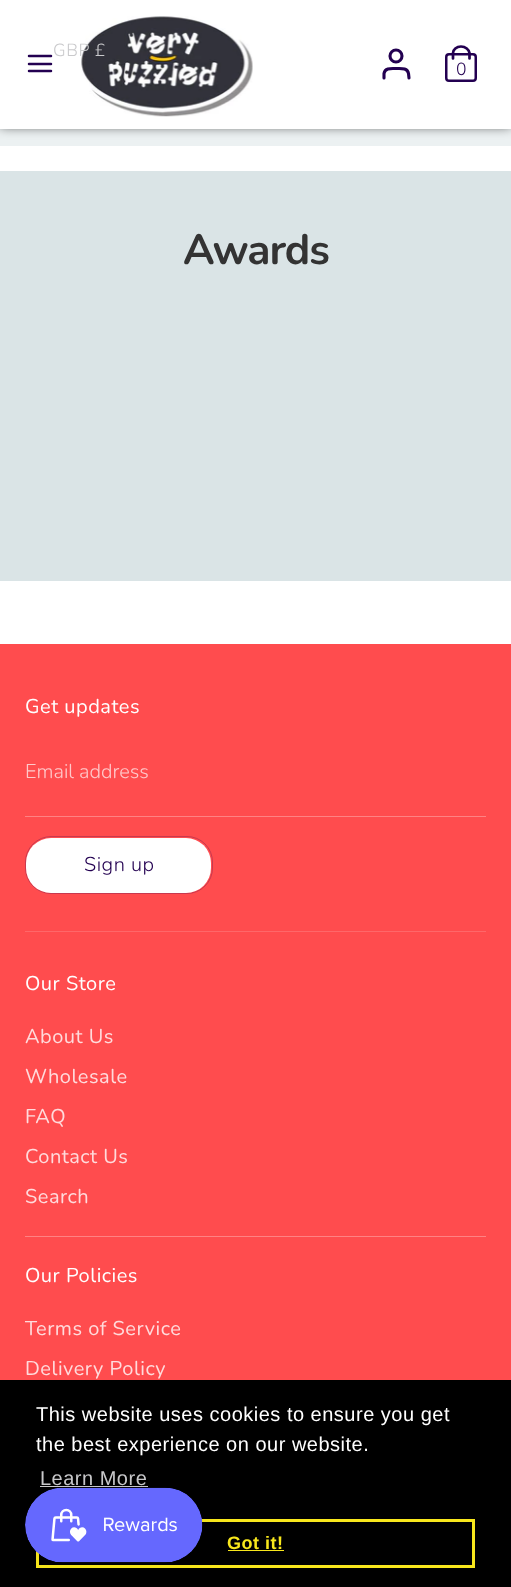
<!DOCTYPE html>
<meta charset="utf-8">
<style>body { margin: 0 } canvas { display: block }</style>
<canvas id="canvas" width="511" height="1587"></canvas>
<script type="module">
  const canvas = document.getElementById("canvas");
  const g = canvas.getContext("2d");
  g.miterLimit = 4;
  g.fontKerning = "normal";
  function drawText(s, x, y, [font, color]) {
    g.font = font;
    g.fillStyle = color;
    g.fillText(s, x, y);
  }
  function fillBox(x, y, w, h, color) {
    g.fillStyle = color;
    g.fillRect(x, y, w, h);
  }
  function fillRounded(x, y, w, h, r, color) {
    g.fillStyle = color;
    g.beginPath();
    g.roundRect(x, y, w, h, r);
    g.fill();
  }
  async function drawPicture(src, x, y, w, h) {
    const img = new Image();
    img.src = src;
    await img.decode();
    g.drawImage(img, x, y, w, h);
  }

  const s1 = ["300 17.5px Nunito", "#CACACC"];
  const s2 = ["300 17.5px Nunito", "#230051"];
  const s3 = ["bold 42.5px Nunito", "#333333"];
  const s4 = ["20px Nunito", "#FFFFFF"];
  const s5 = ["300 20px Nunito", "#FFC9CA"];
  const s6 = ["300 20px Nunito", "#230051"];
  const s7 = ["20px Nunito", "#FFDBDC"];
  const s8 = ["20px Liberation Sans", "#FFFFFF"];
  const s9 = ["20px Liberation Sans", "#CACACC"];
  const s10 = ["bold 18px Liberation Sans", "#F8E71C"];

  fillBox(0, 0, 511, 1587, "#FFFFFF");
  fillBox(0, 129, 511, 17, "#ECF1F2");
  g.fillStyle = "rgba(0, 0, 0, 0.75)";
  g.filter = "blur(6px)";
  g.beginPath();
  g.rect(0, -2, 511, 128);
  g.fill();
  g.filter = "none";
  fillBox(0, 0, 511, 129, "#FFFFFF");
  await drawPicture("pic1.png", 81, 16, 172, 101);
  g.letterSpacing = "0.5px";
  drawText("GBP £", 53, 56, s1);
  g.beginPath();
  g.moveTo(29, 64);
  g.lineTo(51, 64);
  g.moveTo(29, 56);
  g.lineTo(51, 56);
  g.moveTo(29, 71);
  g.lineTo(51, 71);
  g.strokeStyle = "#230051";
  g.lineWidth = 2.5;
  g.lineCap = "round";
  g.stroke();
  g.beginPath();
  g.moveTo(409, 78);
  g.lineTo(408.5, 73.5);
  g.bezierCurveTo(407.5, 67.5, 401, 68.5, 396, 68.5);
  g.bezierCurveTo(391.5, 68.5, 385, 67.5, 384, 73.5);
  g.lineTo(384, 78);
  g.lineWidth = 3.1;
  g.stroke();
  g.beginPath();
  g.arc(396, 56, 6, 0, Math.PI * 2);
  g.stroke();
  g.beginPath();
  g.roundRect(446.25, 54.25, 29.5, 26.5, 2.75);
  g.lineWidth = 2.5;
  g.stroke();
  g.beginPath();
  g.moveTo(453, 58.5);
  g.lineTo(453, 53);
  g.bezierCurveTo(453, 49.5, 456.5, 46.5, 461, 46.5);
  g.bezierCurveTo(465.5, 46.5, 469, 49.5, 469.5, 53);
  g.lineTo(469.5, 58.5);
  g.lineWidth = 2.7;
  g.stroke();
  g.letterSpacing = "0px";
  drawText("0", 456, 75, s2);
  fillBox(0, 171, 511, 410, "#DAE4E6");
  g.letterSpacing = "-1px";
  drawText("Awards", 183, 264, s3);
  fillBox(0, 644, 511, 736, "#FF4C4E");
  g.letterSpacing = "0.5px";
  drawText("Get updates", 25, 713, s4);
  fillBox(25, 816, 461, 1, "#FF8283");
  g.letterSpacing = "0px";
  drawText("Email address", 25, 778, s5);
  g.beginPath();
  g.roundRect(25.5, 836.5, 187, 57, 25.5);
  g.strokeStyle = "#C8394F";
  g.lineWidth = 1;
  g.stroke();
  fillRounded(26, 838, 185, 55, 25, "#FFFFFF");
  g.letterSpacing = "0.5px";
  drawText("Sign up", 84, 871, s6);
  fillBox(25, 931, 461, 1, "#FF6769");
  fillBox(25, 1236, 461, 1, "#FF8283");
  drawText("Our Store", 25, 990, s4);
  drawText("About Us", 25, 1043, s7);
  drawText("Wholesale", 25, 1083, s7);
  drawText("FAQ", 25, 1123, s7);
  drawText("Contact Us", 25, 1163, s7);
  drawText("Search", 25, 1203, s7);
  drawText("Our Policies", 25, 1282, s4);
  drawText("Terms of Service", 25, 1335, s7);
  drawText("Delivery Policy", 25, 1375, s7);
  fillBox(0, 1380, 511, 207, "#000000");
  drawText("This website uses cookies to ensure you get", 36, 1421, s8);
  drawText("the best experience on our website.", 36, 1451, s8);
  drawText("Learn More", 40, 1485, s9);
  fillBox(40, 1486, 108, 1, "#CCCCCC");
  g.strokeStyle = "#F8E71C";
  g.lineWidth = 3;
  g.strokeRect(37.5, 1520.5, 436, 46);
  drawText("Got it!", 227, 1549, s10);
  fillBox(228, 1550, 56, 1, "#F8E71C");
  g.fillStyle = "rgba(0, 0, 0, 0.05)";
  g.filter = "blur(15.5px)";
  g.beginPath();
  g.roundRect(25, 1488, 178, 75, 37.5);
  g.fill();
  g.filter = "none";
  await drawPicture("pic2.png", 25, 1487, 178, 76);
</script>
